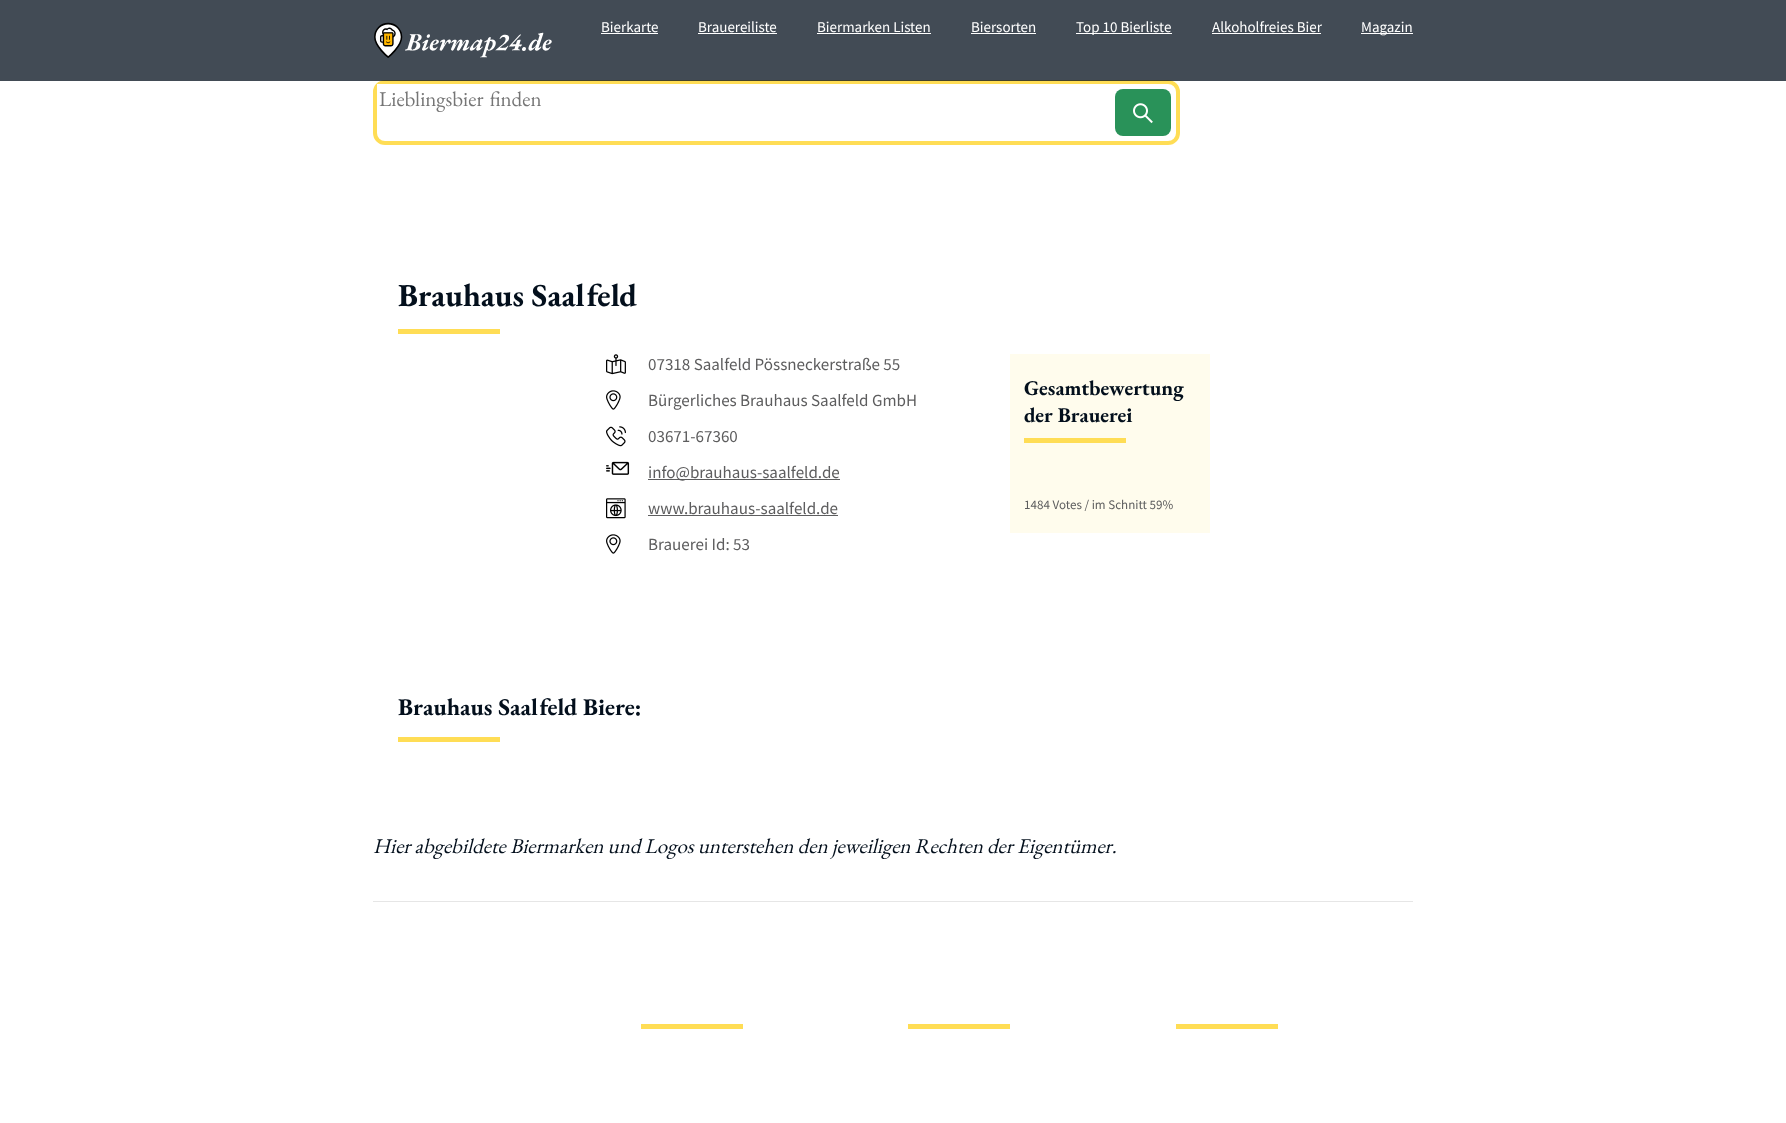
<!DOCTYPE html>
<meta charset="utf-8">
<style>body { margin: 0 } canvas { display: block }</style>
<canvas id="canvas" width="1786" height="1123"></canvas>
<script type="module">
  const canvas = document.getElementById("canvas");
  const g = canvas.getContext("2d");
  g.miterLimit = 4;
  g.fontKerning = "normal";
  function drawText(s, x, y, [font, color]) {
    g.font = font;
    g.fillStyle = color;
    g.fillText(s, x, y);
  }
  function fillBox(x, y, w, h, color) {
    g.fillStyle = color;
    g.fillRect(x, y, w, h);
  }
  function fillRounded(x, y, w, h, r, color) {
    g.fillStyle = color;
    g.beginPath();
    g.roundRect(x, y, w, h, r);
    g.fill();
  }
  async function drawPicture(src, x, y, w, h) {
    const img = new Image();
    img.src = src;
    await img.decode();
    g.drawImage(img, x, y, w, h);
  }

  const s1 = ["15px Source Sans Pro", "#FFFFFF"];
  const s2 = ["21px EB Garamond", "#757575"];
  const s3 = ["bold 32px EB Garamond", "#030F1C"];
  const s4 = ["17px Source Sans Pro", "#5D5D5E"];
  const s5 = ["bold 21px EB Garamond", "#030F1C"];
  const s6 = ["13px Source Sans Pro", "#5D5D5E"];
  const s7 = ["bold 24px EB Garamond", "#030F1C"];
  const s8 = ["italic 21px EB Garamond", "#030F1C"];

  fillBox(0, 0, 1786, 1123, "#FFFFFF");
  g.beginPath();
  g.roundRect(375, 82, 803, 61, 10);
  g.strokeStyle = "#FFDD55";
  g.lineWidth = 4;
  g.stroke();
  fillBox(0, 0, 1786, 81, "rgba(3, 15, 28, 0.75)");
  await drawPicture("pic1.png", 374, 22, 178, 36);
  drawText("Bierkarte", 601, 32, s1);
  fillBox(601, 33, 57, 1, "#FFFFFF");
  drawText("Brauereiliste", 698, 32, s1);
  fillBox(698, 33, 79, 1, "#FFFFFF");
  drawText("Biermarken Listen", 817, 32, s1);
  fillBox(817, 33, 114, 1, "#FFFFFF");
  drawText("Biersorten", 971, 32, s1);
  fillBox(971, 33, 65, 1, "#FFFFFF");
  fillBox(1076, 33, 96, 1, "#FFFFFF");
  drawText("Top 10 Bierliste", 1076, 32, s1);
  drawText("Alkoholfreies Bier", 1212, 32, s1);
  fillBox(1212, 33, 109, 1, "#FFFFFF");
  fillBox(1361, 33, 52, 1, "#FFFFFF");
  drawText("Magazin", 1361, 32, s1);
  fillBox(377, 84, 8, 8, "#FFFFFF");
  g.wordSpacing = "2px";
  drawText("Lieblingsbier finden", 379, 106, s2);
  fillRounded(1115, 89, 56, 47, 8, "#299259");
  await drawPicture("pic2.png", 1133, 103, 20, 21);
  g.wordSpacing = "0px";
  drawText("Brauhaus Saalfeld", 398, 306, s3);
  fillBox(398, 329, 102, 5, "#FFDD55");
  await drawPicture("pic3.png", 606, 354, 20, 21);
  drawText("07318 Saalfeld Pössneckerstraße 55", 648, 370, s4);
  await drawPicture("pic4.png", 606, 390, 15, 20);
  drawText("Bürgerliches Brauhaus Saalfeld GmbH", 648, 406, s4);
  await drawPicture("pic5.png", 606, 426, 20, 21);
  drawText("03671-67360", 648, 442, s4);
  await drawPicture("pic6.png", 606, 461, 24, 14);
  fillBox(648, 479, 192, 1, "#5D5D5E");
  drawText("info@brauhaus-saalfeld.de", 648, 478, s4);
  await drawPicture("pic7.png", 606, 498, 20, 21);
  drawText("www.brauhaus-saalfeld.de", 648, 514, s4);
  fillBox(648, 515, 190, 1, "#5D5D5E");
  await drawPicture("pic4.png", 606, 534, 15, 20);
  drawText("Brauerei Id: 53", 648, 550, s4);
  fillBox(1010, 354, 200, 179, "#FFFCED");
  drawText("Gesamtbewertung", 1024, 395, s5);
  drawText("der Brauerei", 1024, 422, s5);
  fillBox(1024, 438, 102, 5, "#FFDD55");
  drawText("1484 Votes / im Schnitt 59%", 1024, 509, s6);
  drawText("Brauhaus Saalfeld Biere:", 398, 715, s7);
  fillBox(398, 737, 102, 5, "#FFDD55");
  drawText("Hier abgebildete Biermarken und Logos unterstehen den jeweiligen Rechten der Eigentümer.", 373, 853, s8);
  fillBox(373, 901, 1040, 1, "#E6E6E6");
  fillBox(641, 1024, 102, 5, "#FFDD55");
  fillBox(908, 1024, 102, 5, "#FFDD55");
  fillBox(1176, 1024, 102, 5, "#FFDD55");
</script>
